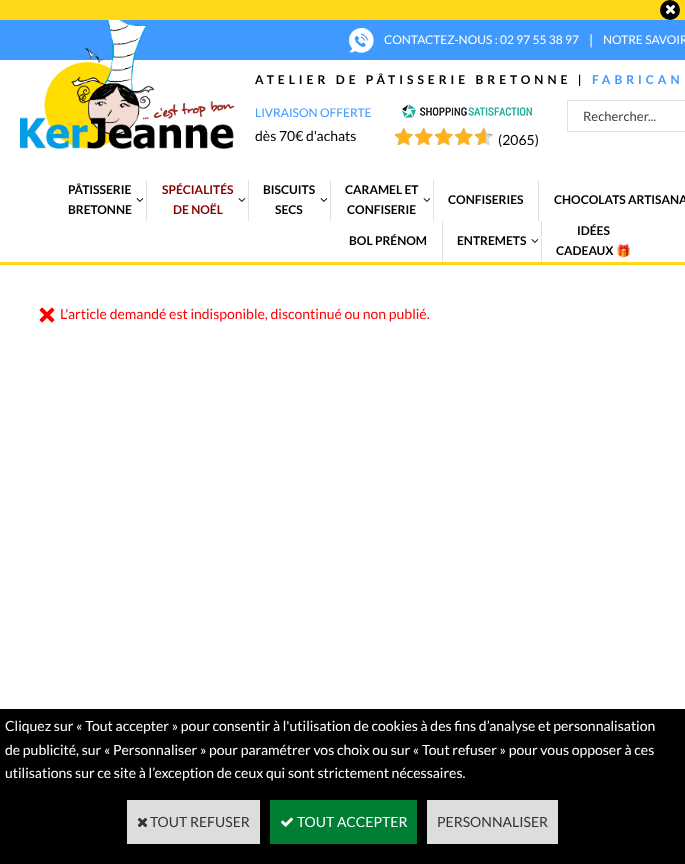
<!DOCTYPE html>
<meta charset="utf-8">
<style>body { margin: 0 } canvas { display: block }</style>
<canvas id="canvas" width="685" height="864"></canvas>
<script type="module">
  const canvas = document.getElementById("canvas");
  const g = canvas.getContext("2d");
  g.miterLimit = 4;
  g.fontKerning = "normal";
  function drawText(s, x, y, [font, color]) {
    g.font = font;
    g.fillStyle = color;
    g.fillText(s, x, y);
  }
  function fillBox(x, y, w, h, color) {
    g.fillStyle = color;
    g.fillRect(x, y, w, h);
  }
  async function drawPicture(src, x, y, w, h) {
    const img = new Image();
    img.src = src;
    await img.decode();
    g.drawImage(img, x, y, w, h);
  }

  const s1 = ["12px Lato", "#FFFFFF"];
  const s2 = ["14px Lato", "#FFFFFF"];
  const s3 = ["bold 12px Lato", "#000000"];
  const s4 = ["bold 12px Lato", "#4099FF"];
  const s5 = ["12px Lato", "#4099FF"];
  const s6 = ["14px Lato", "#000000"];
  const s7 = ["13px Lato", "#444444"];
  const s8 = ["bold 12px Lato", "#860000"];
  const s9 = ["bold 12px Noto Color Emoji", "#000000"];
  const s10 = ["14px Lato", "#FF0000"];
  const s11 = ["14px Lato", "#333333"];

  fillBox(0, 0, 685, 864, "#FFFFFF");
  fillBox(0, 0, 685, 20, "#FFD917");
  g.fillStyle = "#000000";
  g.beginPath();
  g.arc(670, 10, 10, 0, Math.PI * 2);
  g.fill();
  await drawPicture("pic1.png", 665, 4, 11, 11);
  fillBox(0, 20, 685, 40, "#4099FF");
  fillBox(0, 262, 685, 3, "#FFD917");
  await drawPicture("pic2.png", 20, 20, 215, 129);
  await drawPicture("pic3.png", 349, 28, 25, 25);
  drawText("CONTACTEZ-NOUS : 02 97 55 38 97", 384, 44, s1);
  drawText("|", 589, 45, s2);
  drawText("NOTRE SAVOIR", 603, 44, s1);
  g.letterSpacing = "4px";
  drawText("ATELIER DE PÂTISSERIE BRETONNE |", 255, 84, s3);
  drawText("FABRICAN", 592, 84, s4);
  g.letterSpacing = "0px";
  drawText("LIVRAISON OFFERTE", 255, 117, s5);
  drawText("dès 70€ d'achats", 255, 141, s6);
  g.strokeStyle = "#E1E1E1";
  g.strokeRect(567.5, 100.5, 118, 31);
  drawText("Rechercher...", 583, 121, s7);
  await drawPicture("pic4.png", 402, 104, 130, 14);
  await drawPicture("pic5.png", 395, 128, 98, 17);
  await drawPicture("pic6.png", 395, 128, 91, 17);
  drawText("(2065)", 498, 145, s6);
  fillBox(146, 180, 1, 41, "#E1E1E1");
  drawText("PÂTISSERIE", 68, 194, s3);
  await drawPicture("pic7.png", 136, 198, 8, 4);
  drawText("BRETONNE", 68, 214, s3);
  fillBox(248, 180, 1, 41, "#E1E1E1");
  drawText("SPÉCIALITÉS", 162, 194, s8);
  drawText("DE NOËL", 173, 214, s8);
  await drawPicture("pic7.png", 238, 198, 8, 4);
  fillBox(330, 180, 1, 41, "#E1E1E1");
  drawText("BISCUITS", 263, 194, s3);
  await drawPicture("pic7.png", 320, 198, 8, 4);
  drawText("SECS", 275, 214, s3);
  fillBox(433, 180, 1, 41, "#E1E1E1");
  drawText("CARAMEL ET", 345, 194, s3);
  await drawPicture("pic7.png", 423, 198, 8, 4);
  drawText("CONFISERIE", 347, 214, s3);
  fillBox(538, 180, 1, 41, "#E1E1E1");
  drawText("CONFISERIES", 448, 204, s3);
  drawText("CHOCOLATS ARTISANA", 554, 204, s3);
  fillBox(442, 221, 1, 41, "#E1E1E1");
  drawText("BOL PRÉNOM", 349, 245, s3);
  fillBox(541, 221, 1, 41, "#E1E1E1");
  drawText("ENTREMETS", 457, 245, s3);
  await drawPicture("pic7.png", 531, 239, 8, 4);
  drawText("IDÉES", 577, 235, s3);
  drawText("CADEAUX", 556, 255, s3);
  drawText("🎁", 616, 255, s9);
  await drawPicture("pic8.png", 39, 307, 16, 16);
  drawText("L'article demandé est indisponible, discontinué ou non publié.", 60, 319, s10);
  fillBox(0, 709, 685, 155, "#000000");
  drawText("Cliquez sur « Tout accepter » pour consentir à l'utilisation de cookies à des fins d’analyse et personnalisation", 5, 731, s2);
  drawText("de publicité, sur « Personnaliser » pour paramétrer vos choix ou sur « Tout refuser » pour vous opposer à ces", 5, 755, s2);
  drawText("utilisations sur ce site à l’exception de ceux qui sont strictement nécessaires.", 5, 778, s2);
  fillBox(127, 800, 133, 44, "#DDDDDD");
  await drawPicture("pic9.png", 137, 817, 11, 11);
  drawText("TOUT REFUSER", 150, 827, s11);
  fillBox(270, 800, 147, 44, "#007E33");
  await drawPicture("pic10.png", 281, 817, 12, 10);
  drawText("TOUT ACCEPTER", 297, 827, s2);
  fillBox(427, 800, 131, 44, "#DDDDDD");
  drawText("PERSONNALISER", 437, 827, s11);
</script>
